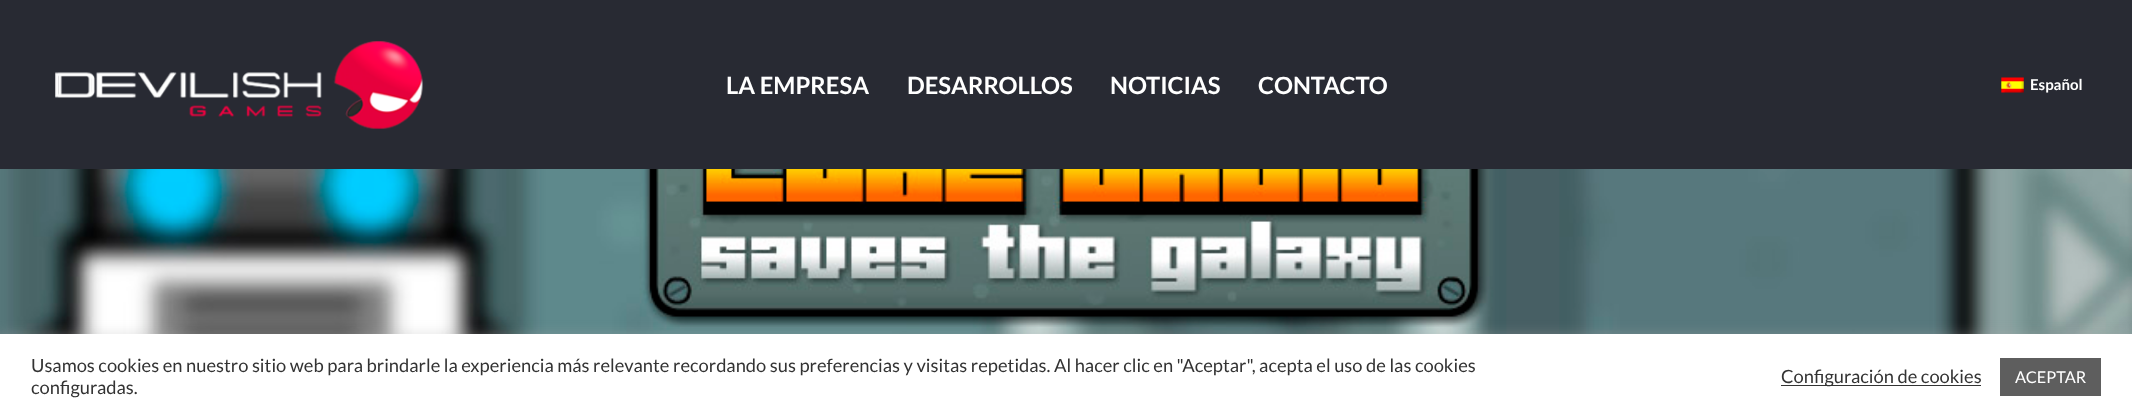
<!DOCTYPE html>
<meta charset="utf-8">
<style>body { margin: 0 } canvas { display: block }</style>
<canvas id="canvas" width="2132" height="420"></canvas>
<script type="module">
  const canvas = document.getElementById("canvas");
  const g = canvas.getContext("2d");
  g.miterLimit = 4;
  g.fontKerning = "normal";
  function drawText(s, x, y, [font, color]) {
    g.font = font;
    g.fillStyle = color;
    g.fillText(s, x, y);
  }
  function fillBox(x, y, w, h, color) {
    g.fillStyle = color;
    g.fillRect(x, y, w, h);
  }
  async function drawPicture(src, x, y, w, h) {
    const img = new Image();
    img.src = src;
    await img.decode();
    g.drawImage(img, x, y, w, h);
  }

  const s1 = ["bold 23.75px Lato", "#FFFFFF"];
  const s2 = ["bold 15px Lato", "#FFFFFF"];
  const s3 = ["18.33px Lato", "#333333"];
  const s4 = ["16.25px Lato", "#FFFFFF"];

  fillBox(0, 0, 2132, 420, "#FFFFFF");
  fillBox(0, 0, 2132, 169, "#282A33");
  await drawPicture("pic1.png", 55, 41, 368, 88);
  drawText("LA EMPRESA", 726, 94, s1);
  drawText("DESARROLLOS", 907, 94, s1);
  drawText("NOTICIAS", 1110, 94, s1);
  drawText("CONTACTO", 1258, 94, s1);
  await drawPicture("pic2.png", 2001, 77, 23, 16);
  drawText("Español", 2030, 90, s2);
  await drawPicture("pic3.png", 0, 169, 2132, 165);
  g.fillStyle = "rgba(172, 171, 171, 0.3)";
  g.filter = "blur(6px)";
  g.beginPath();
  g.rect(0, 333, 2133, 86);
  g.fill();
  g.filter = "none";
  fillBox(0, 334, 2132, 86, "#FFFFFF");
  drawText("Usamos cookies en nuestro sitio web para brindarle la experiencia más relevante recordando sus preferencias y visitas repetidas. Al hacer clic en \"Aceptar\", acepta el uso de las cookies", 31, 372, s3);
  drawText("configuradas.", 31, 394, s3);
  fillBox(1781, 385, 200, 1, "#333333");
  drawText("Configuración de cookies", 1781, 383, s3);
  fillBox(2000, 358, 101, 38, "#5E5E5E");
  drawText("ACEPTAR", 2015, 383, s4);
</script>
